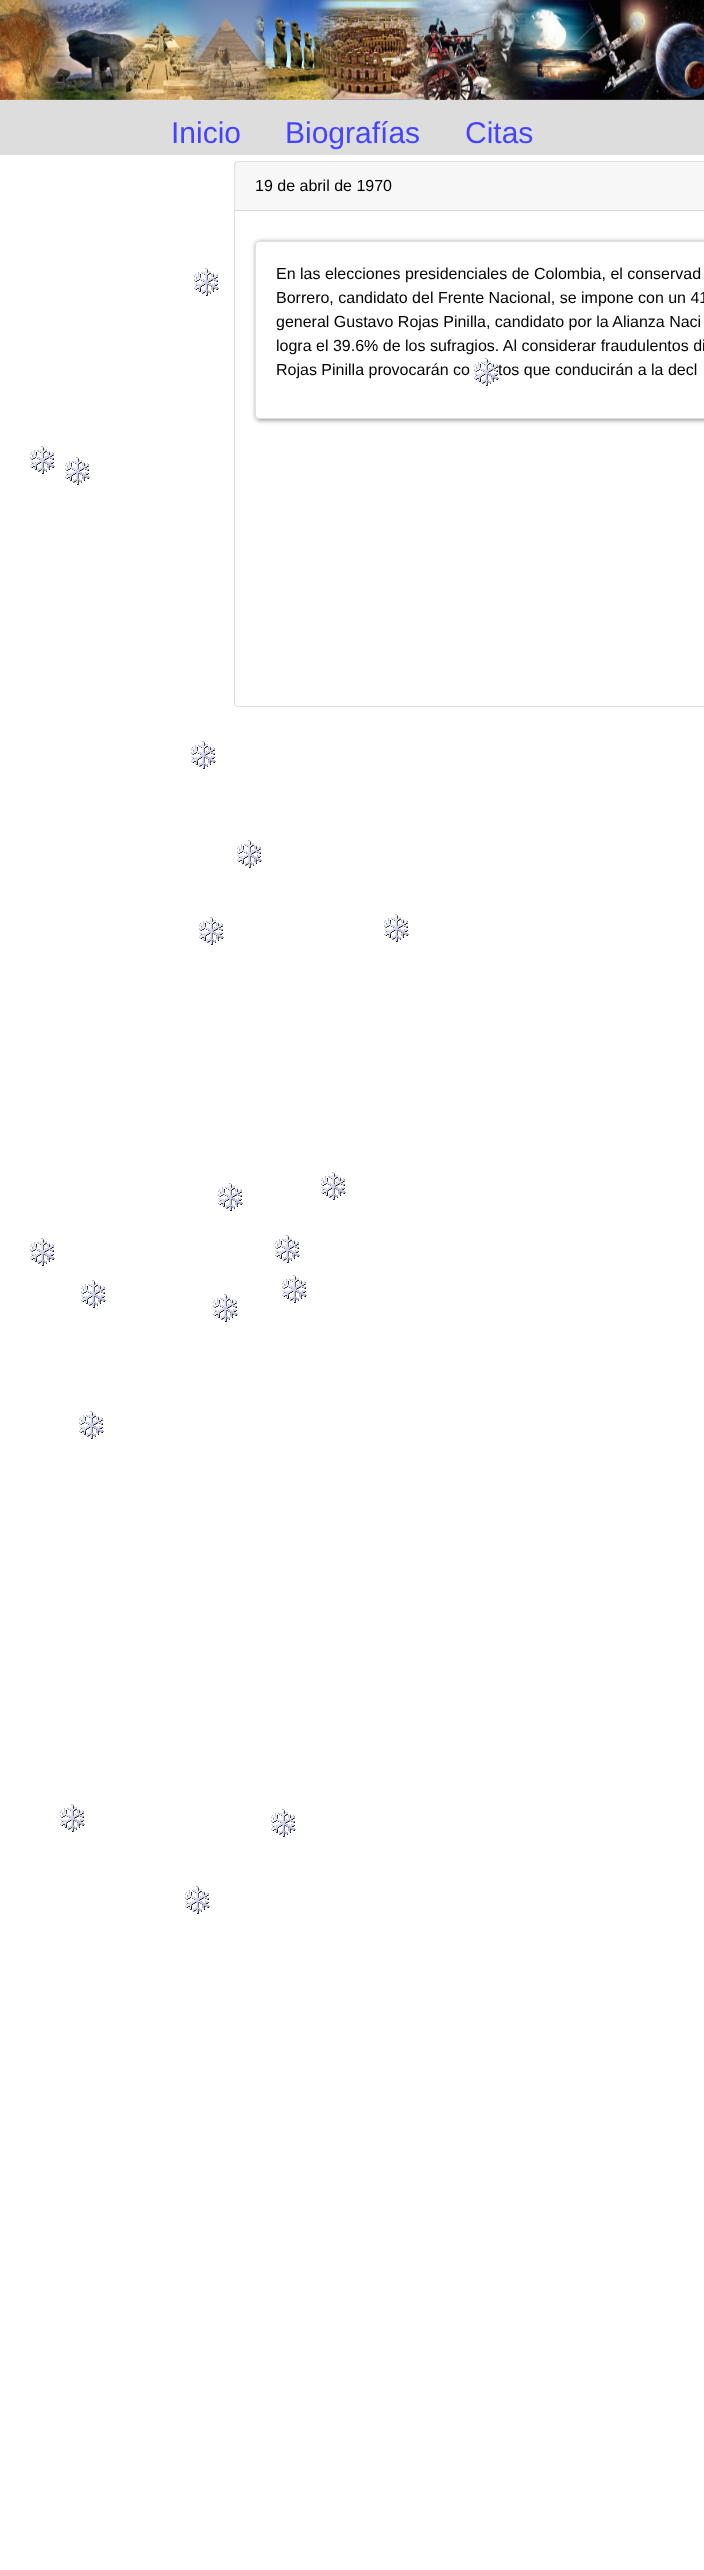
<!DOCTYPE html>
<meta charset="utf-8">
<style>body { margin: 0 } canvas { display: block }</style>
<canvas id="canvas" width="704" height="2570"></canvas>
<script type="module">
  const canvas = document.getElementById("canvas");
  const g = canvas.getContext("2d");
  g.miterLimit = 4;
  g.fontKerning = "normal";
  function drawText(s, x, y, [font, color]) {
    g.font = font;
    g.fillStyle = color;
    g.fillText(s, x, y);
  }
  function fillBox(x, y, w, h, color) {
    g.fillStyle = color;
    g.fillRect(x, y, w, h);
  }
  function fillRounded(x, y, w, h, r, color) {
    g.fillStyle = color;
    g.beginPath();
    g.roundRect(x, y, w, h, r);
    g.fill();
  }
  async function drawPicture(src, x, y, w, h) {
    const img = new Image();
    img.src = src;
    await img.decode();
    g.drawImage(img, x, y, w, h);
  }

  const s1 = ["30px Liberation Sans", "#4444FF"];
  const s2 = ["16px Liberation Sans", "#000000"];

  fillBox(0, 0, 704, 2570, "#FFFFFF");
  await drawPicture("pic1.png", 0, 0, 704, 100);
  fillBox(0, 100, 704, 55, "#DDDDDD");
  drawText("Inicio", 171, 143, s1);
  drawText("Biografías", 285, 143, s1);
  drawText("Citas", 465, 143, s1);
  await drawPicture("pic2.png", 194, 268, 25, 28);
  g.beginPath();
  g.roundRect(234.5, 161.5, 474, 545, 3.5);
  g.strokeStyle = "#DFDFDF";
  g.stroke();
  fillBox(235, 162, 469, 48, "rgba(0, 0, 0, 0.03)");
  fillBox(235, 210, 469, 1, "#D8D8D8");
  drawText("19 de abril de 1970", 255, 191, s2);
  g.fillStyle = "#888888";
  g.filter = "blur(2.5px)";
  g.beginPath();
  g.roundRect(256, 242, 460, 178, 4);
  g.fill();
  g.filter = "none";
  fillRounded(255, 241, 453, 178, 4, "#FFFFFF");
  g.beginPath();
  g.roundRect(255.5, 241.5, 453, 177, 3.5);
  g.strokeStyle = "rgba(0, 0, 0, 0.12)";
  g.stroke();
  drawText("En las elecciones presidenciales de Colombia, el conservad", 276, 279, s2);
  drawText("Borrero, candidato del Frente Nacional, se impone con un 41", 276, 303, s2);
  drawText("general Gustavo Rojas Pinilla, candidato por la Alianza Naci", 276, 327, s2);
  drawText("logra el 39.6% de los sufragios. Al considerar fraudulentos di", 276, 351, s2);
  drawText("Rojas Pinilla provocarán co", 276, 375, s2);
  drawText("tos que conducirán a la decl", 498, 375, s2);
  await drawPicture("pic3.png", 474, 358, 25, 28);
  await drawPicture("pic2.png", 30, 446, 25, 28);
  await drawPicture("pic2.png", 65, 457, 25, 28);
  await drawPicture("pic2.png", 191, 741, 25, 28);
  await drawPicture("pic2.png", 237, 840, 25, 28);
  await drawPicture("pic2.png", 199, 917, 25, 28);
  await drawPicture("pic2.png", 384, 914, 25, 28);
  await drawPicture("pic2.png", 218, 1183, 25, 28);
  await drawPicture("pic2.png", 321, 1172, 25, 28);
  await drawPicture("pic2.png", 30, 1238, 25, 28);
  await drawPicture("pic2.png", 275, 1235, 25, 28);
  await drawPicture("pic2.png", 81, 1280, 25, 28);
  await drawPicture("pic2.png", 213, 1294, 25, 28);
  await drawPicture("pic2.png", 282, 1275, 25, 28);
  await drawPicture("pic2.png", 79, 1411, 25, 28);
  await drawPicture("pic2.png", 60, 1804, 25, 28);
  await drawPicture("pic2.png", 271, 1809, 25, 28);
  await drawPicture("pic2.png", 185, 1886, 25, 28);
</script>
